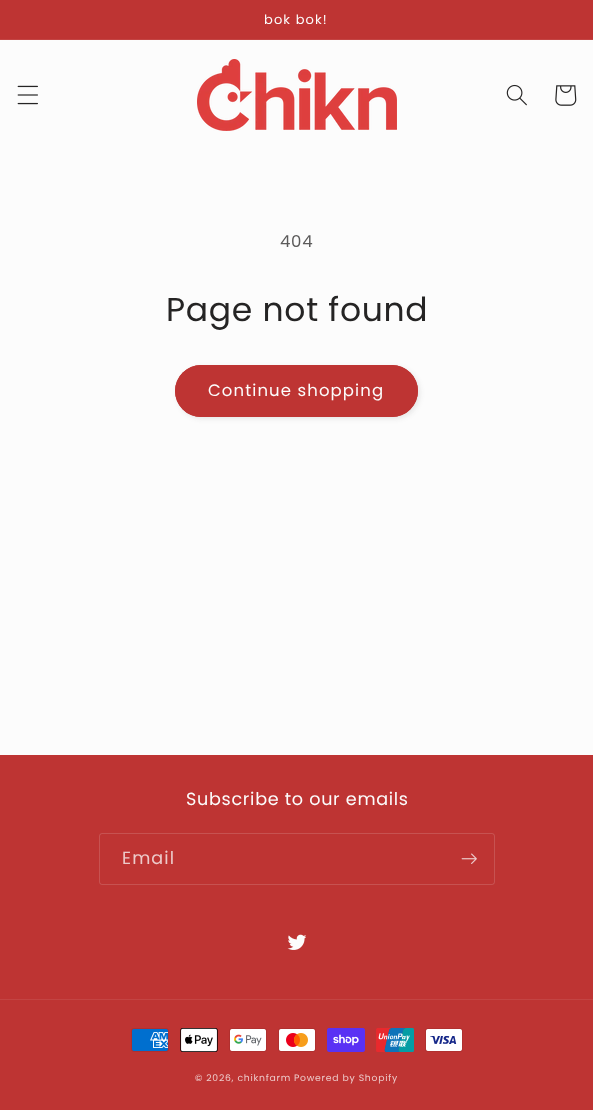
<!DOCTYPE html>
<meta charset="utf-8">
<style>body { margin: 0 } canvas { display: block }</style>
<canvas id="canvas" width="593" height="1110"></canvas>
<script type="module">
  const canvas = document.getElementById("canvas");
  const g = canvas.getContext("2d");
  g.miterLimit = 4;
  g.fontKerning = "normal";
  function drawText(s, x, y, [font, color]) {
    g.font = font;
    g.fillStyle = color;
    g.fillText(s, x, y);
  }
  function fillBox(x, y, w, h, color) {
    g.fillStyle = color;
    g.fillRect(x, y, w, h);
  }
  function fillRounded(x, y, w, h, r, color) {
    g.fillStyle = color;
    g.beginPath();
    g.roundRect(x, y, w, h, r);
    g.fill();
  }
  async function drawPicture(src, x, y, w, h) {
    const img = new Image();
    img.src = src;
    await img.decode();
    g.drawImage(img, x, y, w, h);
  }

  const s1 = ["13px Poppins", "#FCFCFC"];
  const s2 = ["16.5px Poppins", "#5B5A5A"];
  const s3 = ["33px Poppins", "#252424"];
  const s4 = ["16.5px Poppins", "#FCFCFC"];
  const s5 = ["17.6px Poppins", "#FCFCFC"];
  const s6 = ["17.6px Poppins", "#EDCACA"];
  const s7 = ["9.25px Poppins", "#EDCACA"];

  fillBox(0, 0, 593, 1110, "#FCFCFC");
  fillBox(0, 0, 593, 39, "#BE3433");
  fillBox(0, 39, 593, 1, "#C34443");
  g.letterSpacing = "1.1px";
  drawText("bok bok!", 264, 24, s1);
  await drawPicture("pic1.png", 17, 85, 21, 20);
  await drawPicture("pic2.png", 197, 59, 200, 72);
  await drawPicture("pic3.png", 506, 84, 21, 22);
  await drawPicture("pic4.png", 555, 85, 22, 21);
  g.letterSpacing = "0.7px";
  drawText("404", 280, 247, s2);
  drawText("Page not found", 166, 321, s3);
  g.fillStyle = "rgba(37, 36, 36, 0.1)";
  g.filter = "blur(2.5px)";
  g.beginPath();
  g.roundRect(177, 367, 243, 52, 26);
  g.fill();
  g.filter = "none";
  fillRounded(175, 365, 243, 52, 26, "#BE3433");
  g.beginPath();
  g.roundRect(175.5, 365.5, 242, 51, 25.5);
  g.strokeStyle = "#BE3433";
  g.stroke();
  g.letterSpacing = "1.1px";
  drawText("Continue shopping", 208, 396, s4);
  fillBox(0, 755, 593, 355, "#BE3433");
  g.letterSpacing = "0.7px";
  drawText("Subscribe to our emails", 186, 805, s5);
  g.beginPath();
  g.roundRect(99.5, 833.5, 395, 51, 2.5);
  g.strokeStyle = "rgba(252, 252, 252, 0.15)";
  g.stroke();
  g.letterSpacing = "1.1px";
  drawText("Email", 122, 864, s6);
  await drawPicture("pic5.png", 461, 853, 16, 11);
  await drawPicture("pic6.png", 287, 934, 19, 16);
  fillBox(0, 999, 593, 1, "#C34443");
  await drawPicture("pic7.png", 131, 1028, 38, 24);
  await drawPicture("pic8.png", 180, 1028, 38, 24);
  await drawPicture("pic9.png", 229, 1028, 38, 24);
  await drawPicture("pic10.png", 278, 1028, 38, 24);
  await drawPicture("pic11.png", 327, 1028, 38, 24);
  await drawPicture("pic12.png", 376, 1028, 38, 24);
  await drawPicture("pic13.png", 425, 1028, 38, 24);
  g.letterSpacing = "0.75px";
  drawText("© 2026, chiknfarm", 195, 1081, s7);
  drawText("Powered by Shopify", 294, 1081, s7);
</script>
